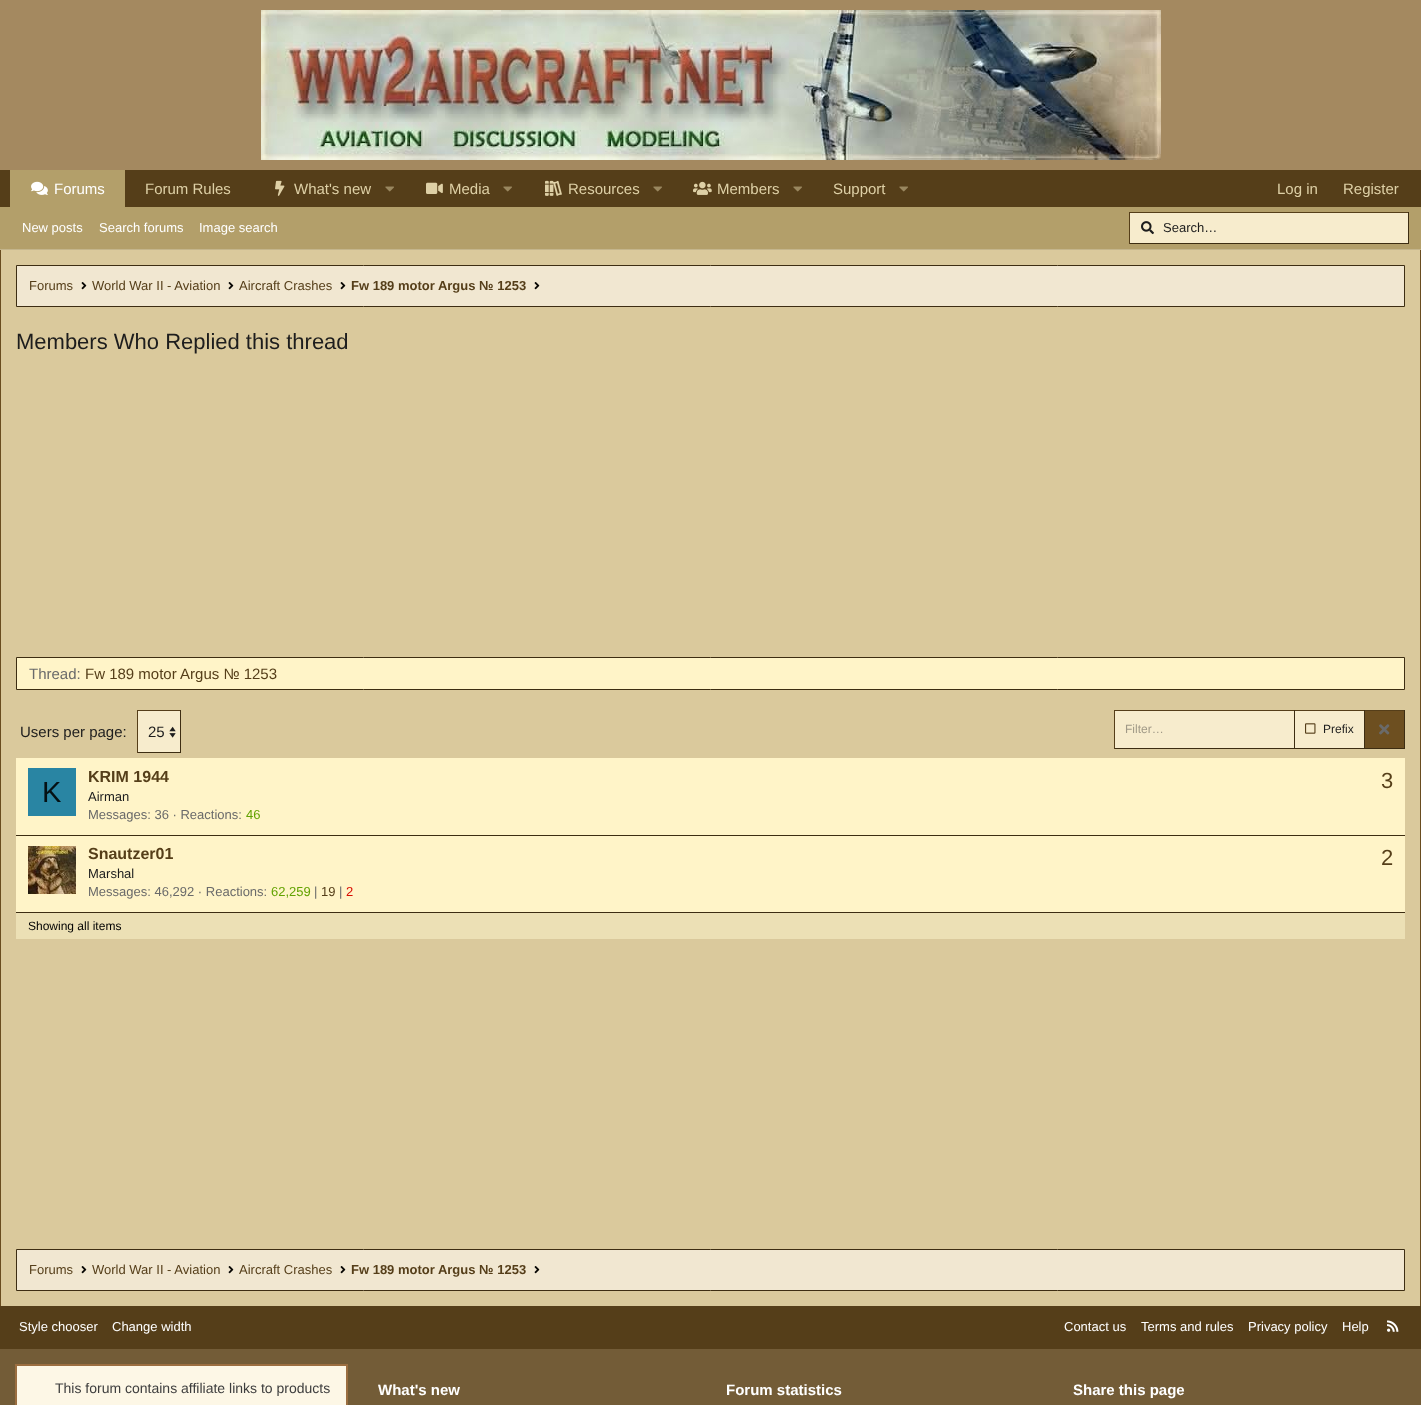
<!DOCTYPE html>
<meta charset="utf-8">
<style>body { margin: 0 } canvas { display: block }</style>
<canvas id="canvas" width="1421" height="1405"></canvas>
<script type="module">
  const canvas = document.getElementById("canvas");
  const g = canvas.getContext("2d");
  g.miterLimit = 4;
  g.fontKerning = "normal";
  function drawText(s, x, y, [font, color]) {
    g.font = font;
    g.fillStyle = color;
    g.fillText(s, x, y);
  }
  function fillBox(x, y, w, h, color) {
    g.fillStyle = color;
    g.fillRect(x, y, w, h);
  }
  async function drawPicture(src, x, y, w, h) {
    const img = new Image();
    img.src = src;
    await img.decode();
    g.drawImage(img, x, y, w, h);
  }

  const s1 = ["15px Liberation Sans", "#FFFFFF"];
  const s2 = ["15px Liberation Sans", "#DED0A6"];
  const s3 = ["13px Liberation Sans", "#FFFFFF"];
  const s4 = ["13px Liberation Sans", "#1D1D1D"];
  const s5 = ["13px Liberation Sans", "#553E19"];
  const s6 = ["bold 13px Liberation Sans", "#553E19"];
  const s7 = ["22px Liberation Sans", "#1D1D1D"];
  const s8 = ["15px Liberation Sans", "#6A6A6A"];
  const s9 = ["15px Liberation Sans", "#553E19"];
  const s10 = ["15px Liberation Sans", "#1D1D1D"];
  const s11 = ["12px Liberation Sans", "#A09987"];
  const s12 = ["12px Liberation Sans", "#1D1D1D"];
  const s13 = ["29px Liberation Sans", "#051114"];
  const s14 = ["bold 16px Liberation Sans", "#553E19"];
  const s15 = ["22px Liberation Sans", "#553E19"];
  const s16 = ["13px Liberation Sans", "#6A6A6A"];
  const s17 = ["13px Liberation Sans", "#62A201"];
  const s18 = ["13px Liberation Sans", "#D90B00"];
  const s19 = ["12px Liberation Sans", "#000000"];
  const s20 = ["14px Liberation Sans", "#3D3D3D"];
  const s21 = ["bold 15px Liberation Sans", "#FFFFFF"];

  fillBox(0, 0, 1421, 1405, "#A48960");
  await drawPicture("pic1.png", 261, 10, 900, 150);
  fillBox(0, 170, 1421, 37, "#553E19");
  fillBox(10, 170, 115, 37, "#B39F6A");
  await drawPicture("pic2.png", 31, 181, 17, 14);
  drawText("Forums", 54, 194, s1);
  drawText("Forum Rules", 145, 194, s2);
  await drawPicture("pic3.png", 275, 180, 10, 16);
  drawText("What's new", 294, 194, s2);
  await drawPicture("pic4.png", 385, 186, 9, 6);
  await drawPicture("pic5.png", 426, 182, 17, 12);
  drawText("Media", 449, 194, s2);
  await drawPicture("pic4.png", 503, 186, 9, 6);
  await drawPicture("pic6.png", 545, 180, 17, 16);
  drawText("Resources", 568, 194, s2);
  await drawPicture("pic4.png", 653, 186, 9, 6);
  await drawPicture("pic7.png", 693, 181, 19, 14);
  drawText("Members", 717, 194, s2);
  await drawPicture("pic4.png", 793, 186, 9, 6);
  drawText("Support", 833, 194, s2);
  await drawPicture("pic4.png", 899, 186, 9, 6);
  drawText("Log in", 1277, 194, s2);
  drawText("Register", 1343, 194, s2);
  fillBox(0, 207, 1421, 42, "#B39F6A");
  fillBox(0, 249, 1421, 1, "#C4B58C");
  drawText("New posts", 22, 232, s3);
  drawText("Search forums", 99, 232, s3);
  drawText("Image search", 199, 232, s3);
  fillBox(1130, 213, 278, 30, "#F7ECCD");
  await drawPicture("pic8.png", 1141, 221, 13, 14);
  fillBox(1129, 212, 280, 1, "#553E19");
  fillBox(1408, 212, 1, 32, "#3D2D12");
  fillBox(1129, 243, 280, 1, "#3D2D12");
  fillBox(1129, 212, 1, 32, "#553E19");
  drawText("Search…", 1163, 232, s4);
  fillBox(1, 250, 1419, 1056, "#DAC99C");
  fillBox(1420, 250, 1, 1056, "#694C1F");
  fillBox(0, 250, 1, 1056, "#694C1F");
  g.fillStyle = "#F1E7D1";
  g.beginPath();
  g.rect(16.5, 265.5, 1388, 41);
  g.fill();
  g.strokeStyle = "#3D2D12";
  g.stroke();
  drawText("Forums", 29, 290, s5);
  await drawPicture("pic9.png", 81, 282, 6, 8);
  drawText("World War II - Aviation", 92, 290, s5);
  await drawPicture("pic9.png", 228, 282, 6, 8);
  drawText("Aircraft Crashes", 239, 290, s5);
  await drawPicture("pic9.png", 340, 282, 6, 8);
  drawText("Fw 189 motor Argus № 1253", 351, 290, s6);
  await drawPicture("pic9.png", 534, 282, 6, 8);
  drawText("Members Who Replied this thread", 16, 349, s7);
  g.fillStyle = "#FFF4C8";
  g.beginPath();
  g.rect(16.5, 657.5, 1388, 32);
  g.fill();
  g.stroke();
  drawText("Thread:", 29, 679, s8);
  drawText("Fw 189 motor Argus № 1253", 85, 679, s9);
  drawText("Users per page:", 20, 737, s10);
  fillBox(138, 711, 42, 41, "#F7ECCD");
  await drawPicture("pic10.png", 169, 726, 7, 12);
  fillBox(137, 710, 44, 1, "#553E19");
  fillBox(180, 710, 1, 43, "#3D2D12");
  fillBox(137, 752, 44, 1, "#3D2D12");
  fillBox(137, 710, 1, 43, "#553E19");
  drawText("25", 148, 737, s10);
  fillBox(1115, 711, 179, 37, "#F7ECCD");
  fillBox(1114, 710, 291, 1, "#553E19");
  fillBox(1114, 748, 180, 1, "#3D2D12");
  fillBox(1114, 710, 1, 39, "#553E19");
  drawText("Filter…", 1125, 733, s11);
  fillBox(1295, 711, 69, 37, "#F7ECCD");
  fillBox(1364, 710, 1, 39, "#3D2D12");
  fillBox(1294, 748, 71, 1, "#3D2D12");
  fillBox(1294, 710, 1, 39, "#3D2D12");
  await drawPicture("pic11.png", 1305, 723, 11, 11);
  drawText("Prefix", 1323, 733, s12);
  fillBox(1365, 711, 39, 37, "#6D4F20");
  fillBox(1404, 710, 1, 39, "#3D2D12");
  fillBox(1365, 748, 40, 1, "#3D2D12");
  await drawPicture("pic12.png", 1379, 724, 11, 11);
  fillBox(16, 758, 1389, 154, "#FFF4C8");
  fillBox(28, 768, 48, 48, "#2985A3");
  drawText("K", 42, 802, s13);
  drawText("KRIM 1944", 88, 782, s14);
  drawText("3", 1381, 788, s15);
  drawText("Airman", 88, 801, s4);
  drawText("Messages: 36 · Reactions:", 88, 819, s16);
  drawText("46", 246, 819, s17);
  fillBox(16, 835, 1389, 1, "#3D2D12");
  await drawPicture("pic13.png", 28, 846, 48, 48);
  drawText("Snautzer01", 88, 859, s14);
  drawText("2", 1381, 865, s15);
  drawText("Marshal", 88, 878, s4);
  drawText("Messages: 46,292 · Reactions:", 88, 896, s16);
  drawText("62,259", 271, 896, s17);
  drawText("|", 314, 896, s16);
  drawText("19", 321, 896, s5);
  drawText("|", 339, 896, s16);
  drawText("2", 346, 896, s18);
  fillBox(16, 913, 1389, 26, "#ECE0B5");
  fillBox(16, 912, 1389, 1, "#3D2D12");
  drawText("Showing all items", 28, 930, s19);
  g.fillStyle = "#F1E7D1";
  g.beginPath();
  g.rect(16.5, 1249.5, 1388, 41);
  g.fill();
  g.stroke();
  drawText("Forums", 29, 1274, s5);
  await drawPicture("pic9.png", 81, 1266, 6, 8);
  drawText("World War II - Aviation", 92, 1274, s5);
  await drawPicture("pic9.png", 228, 1266, 6, 8);
  drawText("Aircraft Crashes", 239, 1274, s5);
  await drawPicture("pic9.png", 340, 1266, 6, 8);
  drawText("Fw 189 motor Argus № 1253", 351, 1274, s6);
  await drawPicture("pic9.png", 534, 1266, 6, 8);
  fillBox(0, 1306, 1421, 43, "#553E19");
  drawText("Style chooser", 19, 1331, s3);
  drawText("Change width", 112, 1331, s3);
  drawText("Contact us", 1064, 1331, s3);
  drawText("Terms and rules", 1141, 1331, s3);
  drawText("Privacy policy", 1248, 1331, s3);
  drawText("Help", 1342, 1331, s3);
  await drawPicture("pic14.png", 1387, 1320, 12, 12);
  fillBox(0, 1349, 1421, 56, "#735C37");
  g.fillStyle = "#FDF7E6";
  g.beginPath();
  g.rect(16, 1365, 331, 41);
  g.fill();
  g.strokeStyle = "#9B6E40";
  g.lineWidth = 2;
  g.stroke();
  drawText("This forum contains affiliate links to products", 55, 1393, s20);
  drawText("What's new", 378, 1395, s21);
  drawText("Forum statistics", 726, 1395, s21);
  drawText("Share this page", 1073, 1395, s21);
</script>
